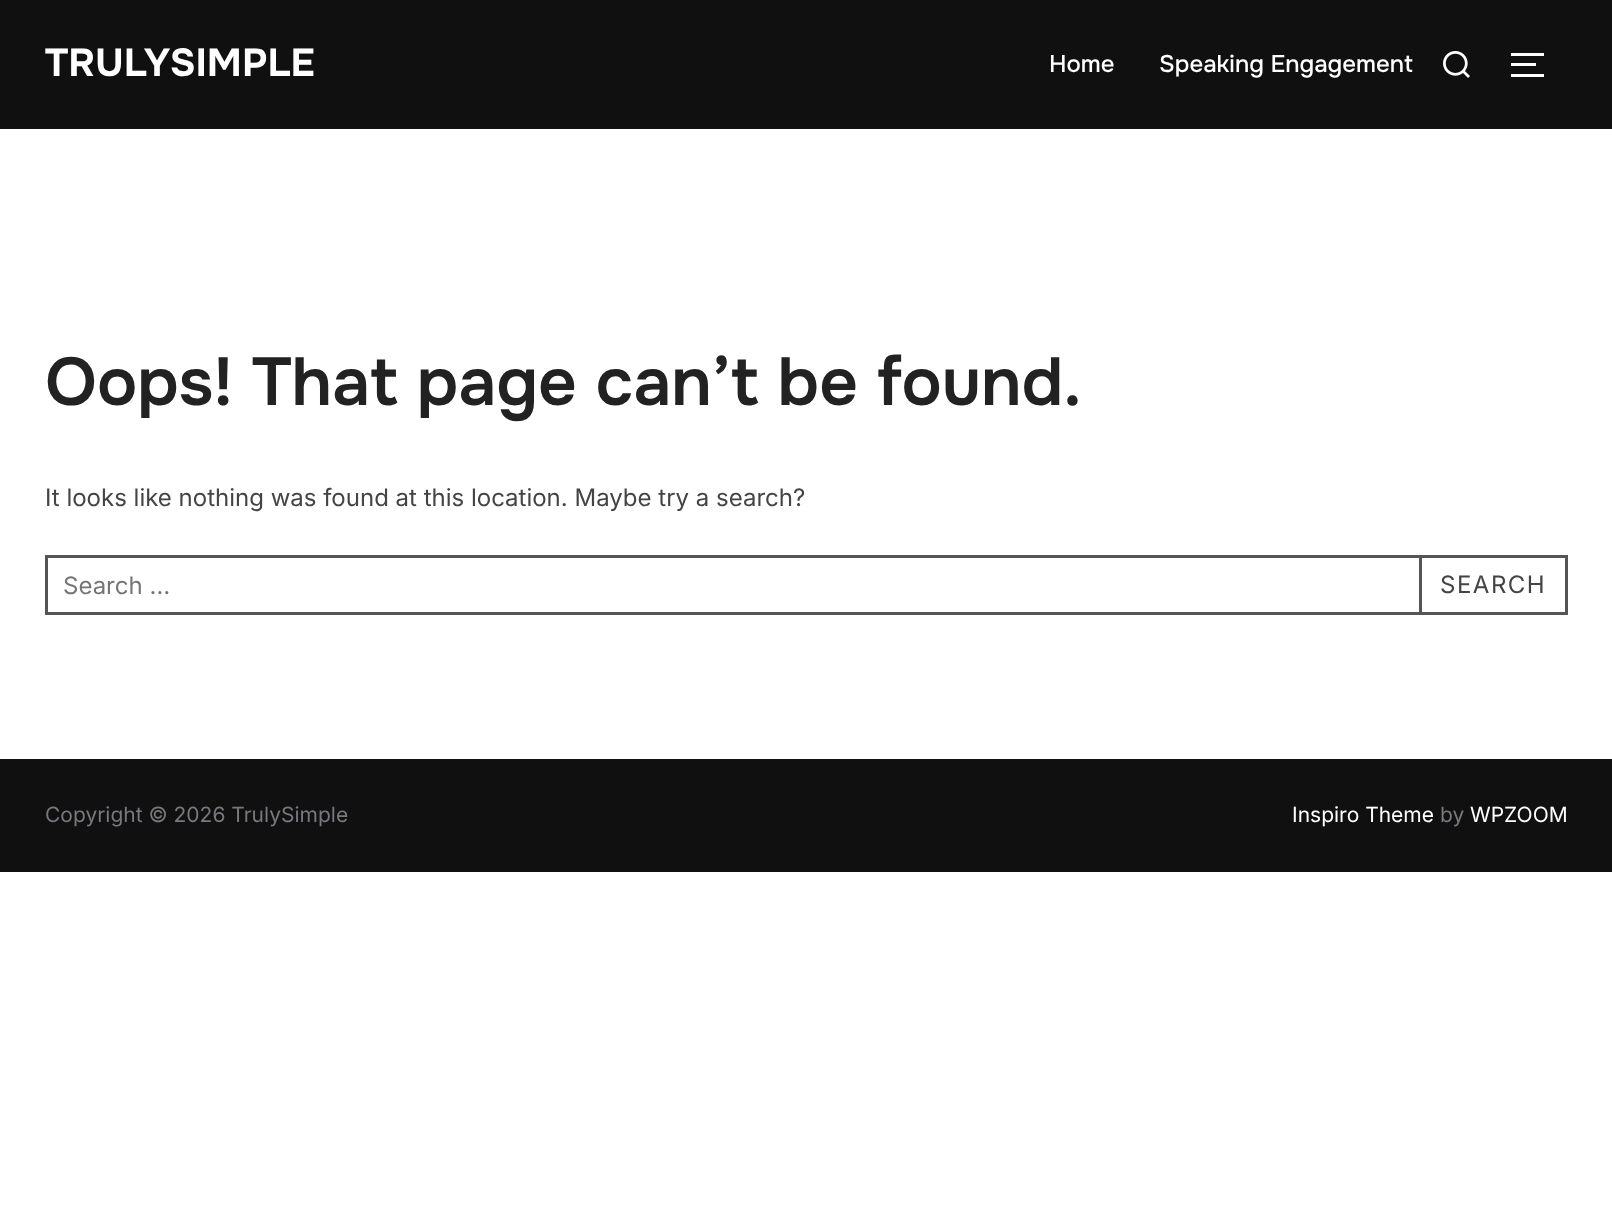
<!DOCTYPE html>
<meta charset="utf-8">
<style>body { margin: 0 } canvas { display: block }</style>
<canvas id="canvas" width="1612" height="1209"></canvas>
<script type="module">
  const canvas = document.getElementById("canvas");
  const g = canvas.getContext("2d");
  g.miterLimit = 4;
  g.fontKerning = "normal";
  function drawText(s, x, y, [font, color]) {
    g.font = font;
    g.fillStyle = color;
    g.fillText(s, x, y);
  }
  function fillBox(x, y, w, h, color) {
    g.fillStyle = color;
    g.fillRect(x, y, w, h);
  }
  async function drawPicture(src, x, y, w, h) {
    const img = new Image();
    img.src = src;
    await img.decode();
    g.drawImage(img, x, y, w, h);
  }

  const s1 = ["bold 39px Onest", "#FFFFFF"];
  const s2 = ["500 24px Onest", "#FFFFFF"];
  const s3 = ["600 67.5px Onest", "#222222"];
  const s4 = ["24px Inter", "#444444"];
  const s5 = ["24px Inter", "#757575"];
  const s6 = ["21px Inter", "#78787F"];
  const s7 = ["21px Inter", "#FFFFFF"];

  fillBox(0, 0, 1612, 1209, "#FFFFFF");
  fillBox(0, 0, 1612, 129, "#101010");
  drawText("TRULYSIMPLE", 45, 76, s1);
  drawText("Home", 1049, 72, s2);
  drawText("Speaking Engagement", 1159, 72, s2);
  await drawPicture("pic1.png", 1443, 51, 27, 27);
  fillBox(1511, 53, 33, 3, "#FFFFFF");
  fillBox(1511, 63, 25, 3, "#FFFFFF");
  fillBox(1511, 74, 33, 3, "#FFFFFF");
  drawText("Oops! That page can’t be found.", 45, 405, s3);
  drawText("It looks like nothing was found at this location. Maybe try a search?", 45, 506, s4);
  g.strokeStyle = "#565555";
  g.lineWidth = 3;
  g.strokeRect(46.5, 556.5, 1520, 57);
  drawText("Search …", 63, 594, s5);
  g.strokeRect(1420.5, 556.5, 146, 57);
  g.letterSpacing = "1.5px";
  drawText("SEARCH", 1440, 593, s4);
  fillBox(0, 759, 1612, 113, "#101010");
  g.letterSpacing = "0px";
  drawText("Copyright © 2026 TrulySimple", 45, 822, s6);
  drawText("Inspiro Theme", 1292, 822, s7);
  drawText("by", 1440, 822, s6);
  drawText("WPZOOM", 1470, 822, s7);
</script>
